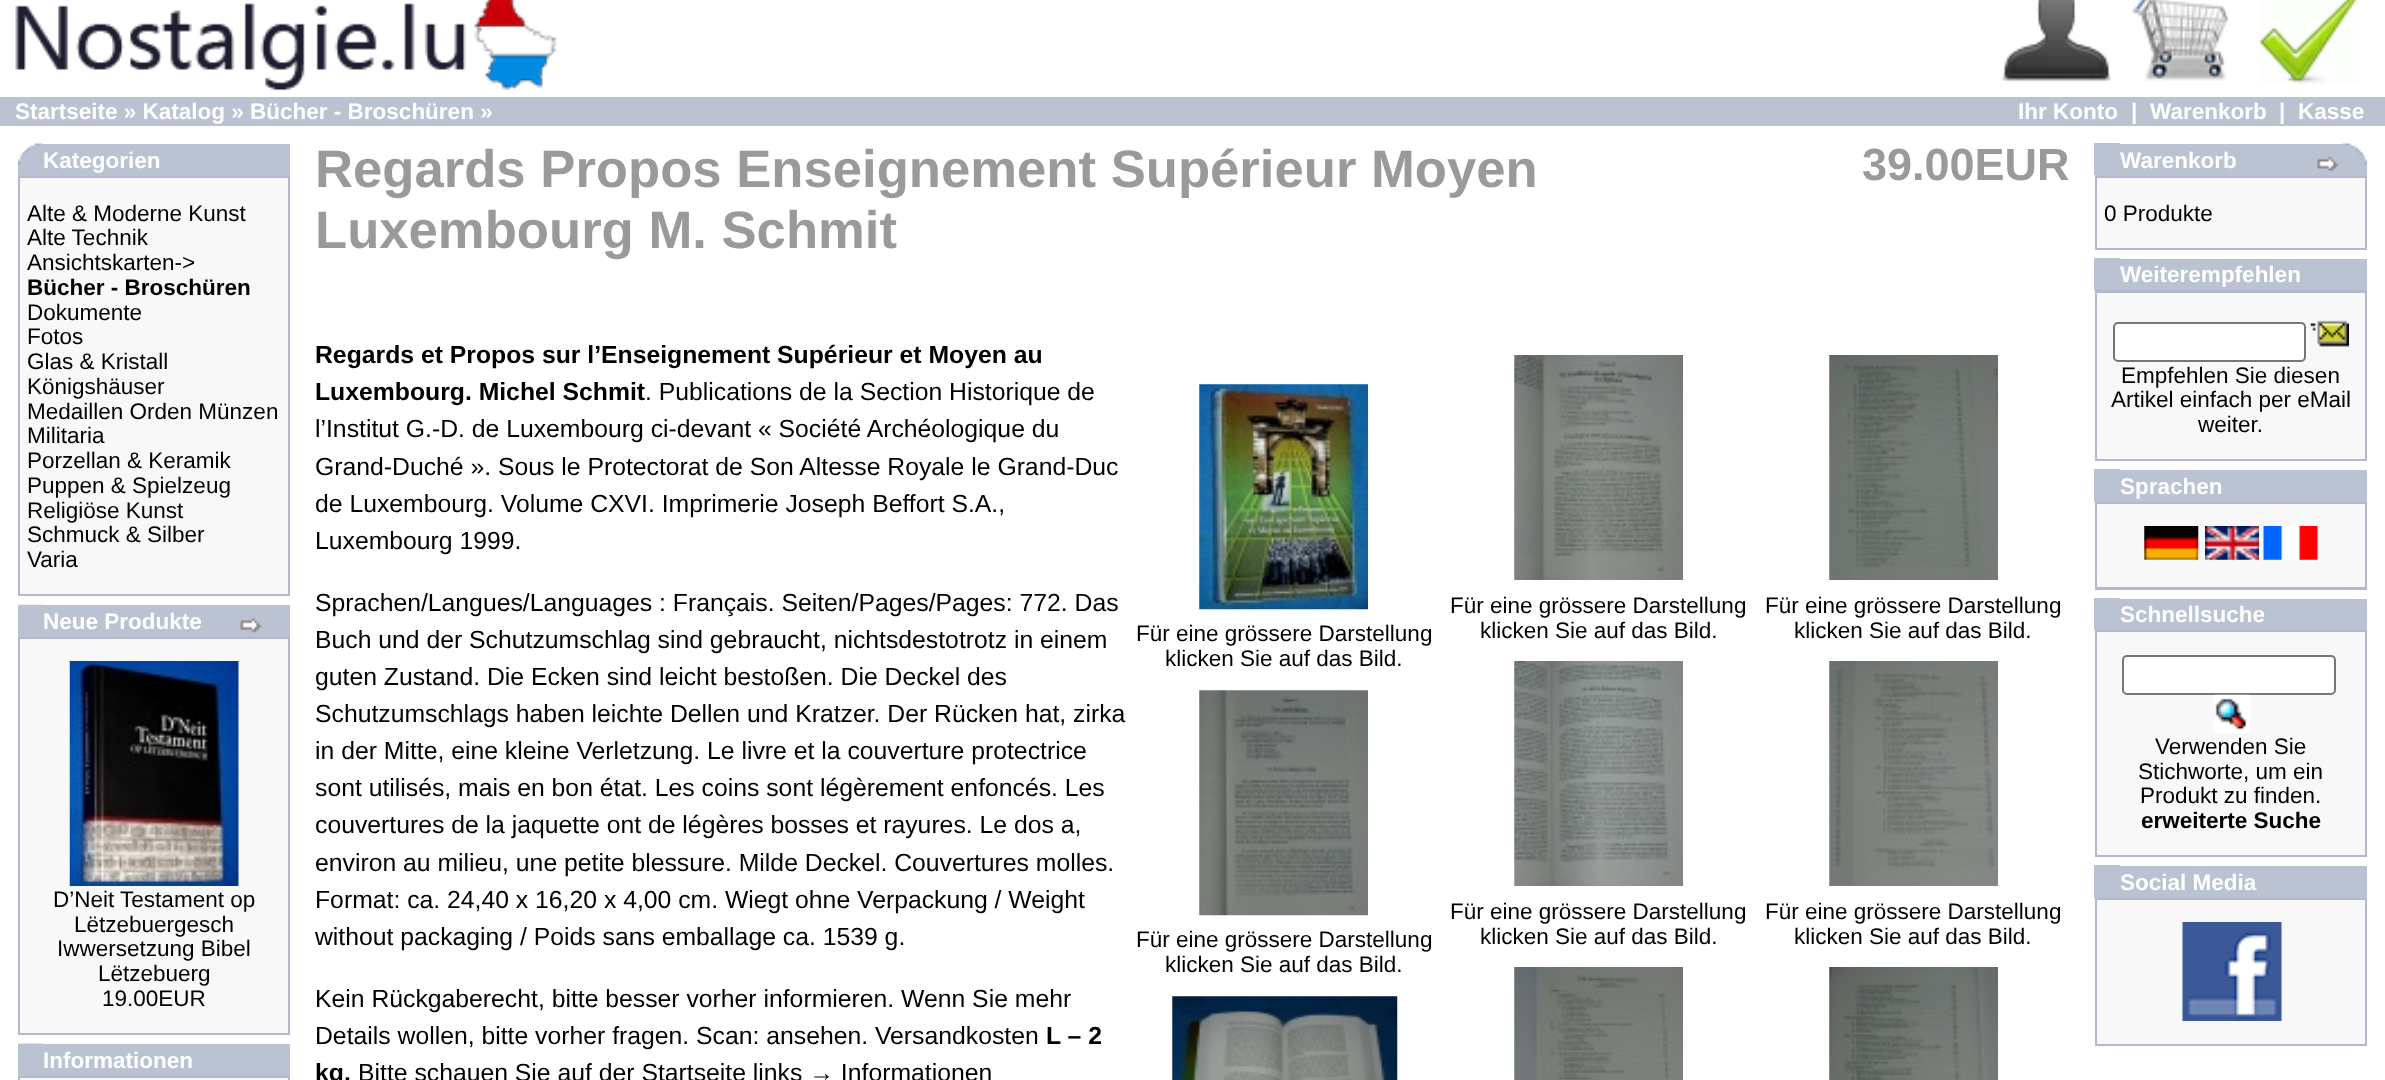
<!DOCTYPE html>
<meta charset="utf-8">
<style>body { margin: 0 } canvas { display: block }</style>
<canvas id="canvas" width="2385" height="1080"></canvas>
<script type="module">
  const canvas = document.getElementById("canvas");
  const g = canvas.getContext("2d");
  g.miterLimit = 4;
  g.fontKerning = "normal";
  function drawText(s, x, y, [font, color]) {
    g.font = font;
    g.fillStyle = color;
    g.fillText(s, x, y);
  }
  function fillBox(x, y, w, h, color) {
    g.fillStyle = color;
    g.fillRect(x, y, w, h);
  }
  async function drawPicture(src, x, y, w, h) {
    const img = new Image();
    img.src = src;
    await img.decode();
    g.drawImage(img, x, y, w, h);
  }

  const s1 = ["bold 22.5px Liberation Sans", "#FFFFFF"];
  const s2 = ["22.5px Liberation Sans", "#000000"];
  const s3 = ["bold 22.5px Liberation Sans", "#000000"];
  const s4 = ["bold 52.65px Liberation Sans", "#9A9A9A"];
  const s5 = ["bold 45px Liberation Sans", "#9A9A9A"];
  const s6 = ["bold 24.75px Liberation Sans", "#000000"];
  const s7 = ["24.75px Liberation Sans", "#000000"];

  fillBox(0, 0, 2385, 1080, "#FFFFFF");
  await drawPicture("pic1.png", 15, 0, 542, 91);
  await drawPicture("pic2.png", 2002, 0, 109, 82);
  await drawPicture("pic3.png", 2132, 0, 97, 81);
  await drawPicture("pic4.png", 2259, 0, 100, 84);
  fillBox(0, 97, 2385, 29, "#BBC3D3");
  drawText("Startseite » Katalog » Bücher - Broschüren »", 15, 119, s1);
  drawText("Ihr Konto", 2018, 119, s1);
  drawText("|", 2131, 119, s1);
  drawText("Warenkorb", 2150, 119, s1);
  drawText("|", 2279, 119, s1);
  drawText("Kasse", 2298, 119, s1);
  fillBox(18, 144, 272, 32, "#BBC3D3");
  await drawPicture("pic5.png", 18, 143, 25, 23);
  drawText("Kategorien", 43, 168, s1);
  fillBox(18, 176, 272, 420, "#B6B7CB");
  fillBox(20, 178, 268, 416, "#F8F8F9");
  drawText("Alte & Moderne Kunst", 27, 221, s2);
  drawText("Alte Technik", 27, 245, s2);
  drawText("Ansichtskarten->", 27, 270, s2);
  drawText("Bücher - Broschüren", 27, 295, s3);
  drawText("Dokumente", 27, 320, s2);
  drawText("Fotos", 27, 344, s2);
  drawText("Glas & Kristall", 27, 369, s2);
  drawText("Königshäuser", 27, 394, s2);
  drawText("Medaillen Orden Münzen", 27, 419, s2);
  drawText("Militaria", 27, 443, s2);
  drawText("Porzellan & Keramik", 27, 468, s2);
  drawText("Puppen & Spielzeug", 27, 493, s2);
  drawText("Religiöse Kunst", 27, 518, s2);
  drawText("Schmuck & Silber", 27, 542, s2);
  drawText("Varia", 27, 567, s2);
  fillBox(18, 605, 272, 32, "#BBC3D3");
  await drawPicture("pic6.png", 18, 604, 25, 1);
  drawText("Neue Produkte", 43, 629, s1);
  await drawPicture("pic7.png", 240, 617, 22, 16);
  fillBox(18, 637, 272, 398, "#B6B7CB");
  fillBox(20, 639, 268, 394, "#F8F8F9");
  await drawPicture("pic8.png", 69, 661, 170, 225);
  drawText("D’Neit Testament op", 53, 907, s2);
  drawText("Lëtzebuergesch", 74, 932, s2);
  drawText("Iwwersetzung Bibel", 57, 956, s2);
  drawText("Lëtzebuerg", 98, 981, s2);
  drawText("19.00EUR", 102, 1006, s2);
  fillBox(18, 1044, 272, 32, "#BBC3D3");
  await drawPicture("pic9.png", 18, 1043, 25, 1);
  drawText("Informationen", 43, 1068, s1);
  fillBox(18, 1076, 272, 4, "#B6B7CB");
  fillBox(20, 1078, 268, 2, "#F8F8F9");
  drawText("Regards Propos Enseignement Supérieur Moyen", 315, 187, s4);
  drawText("Luxembourg M. Schmit", 315, 248, s4);
  drawText("39.00EUR", 1862, 180, s5);
  drawText("Regards et Propos sur l’Enseignement Supérieur et Moyen au", 315, 363, s6);
  drawText("Luxembourg. Michel Schmit", 315, 400, s6);
  drawText(". Publications de la Section Historique de", 645, 400, s7);
  drawText("l’Institut G.-D. de Luxembourg ci-devant « Société Archéologique du", 315, 437, s7);
  drawText("Grand-Duché ». Sous le Protectorat de Son Altesse Royale le Grand-Duc", 315, 475, s7);
  drawText("de Luxembourg. Volume CXVI. Imprimerie Joseph Beffort S.A.,", 315, 512, s7);
  drawText("Luxembourg 1999.", 315, 549, s7);
  drawText("Sprachen/Langues/Languages : Français. Seiten/Pages/Pages: 772. Das", 315, 611, s7);
  drawText("Buch und der Schutzumschlag sind gebraucht, nichtsdestotrotz in einem", 315, 648, s7);
  drawText("guten Zustand. Die Ecken sind leicht bestoßen. Die Deckel des", 315, 685, s7);
  drawText("Schutzumschlags haben leichte Dellen und Kratzer. Der Rücken hat, zirka", 315, 722, s7);
  drawText("in der Mitte, eine kleine Verletzung. Le livre et la couverture protectrice", 315, 759, s7);
  drawText("sont utilisés, mais en bon état. Les coins sont légèrement enfoncés. Les", 315, 796, s7);
  drawText("couvertures de la jaquette ont de légères bosses et rayures. Le dos a,", 315, 833, s7);
  drawText("environ au milieu, une petite blessure. Milde Deckel. Couvertures molles.", 315, 871, s7);
  drawText("Format: ca. 24,40 x 16,20 x 4,00 cm. Wiegt ohne Verpackung / Weight", 315, 908, s7);
  drawText("without packaging / Poids sans emballage ca. 1539 g.", 315, 945, s7);
  drawText("Kein Rückgaberecht, bitte besser vorher informieren. Wenn Sie mehr", 315, 1007, s7);
  drawText("Details wollen, bitte vorher fragen. Scan: ansehen. Versandkosten", 315, 1044, s7);
  drawText("L – 2", 1046, 1044, s6);
  drawText("kg.", 315, 1081, s6);
  drawText("Bitte schauen Sie auf der Startseite links → Informationen", 358, 1081, s7);
  await drawPicture("pic10.png", 1199, 384, 169, 226);
  drawText("Für eine grössere Darstellung", 1136, 641, s2);
  drawText("klicken Sie auf das Bild.", 1165, 666, s2);
  await drawPicture("pic11.png", 1199, 690, 169, 226);
  drawText("Für eine grössere Darstellung", 1136, 947, s2);
  drawText("klicken Sie auf das Bild.", 1165, 972, s2);
  await drawPicture("pic12.png", 1172, 996, 226, 84);
  await drawPicture("pic13.png", 1514, 355, 169, 225);
  drawText("Für eine grössere Darstellung", 1450, 613, s2);
  drawText("klicken Sie auf das Bild.", 1480, 638, s2);
  await drawPicture("pic14.png", 1514, 661, 169, 225);
  drawText("Für eine grössere Darstellung", 1450, 919, s2);
  drawText("klicken Sie auf das Bild.", 1480, 944, s2);
  await drawPicture("pic15.png", 1514, 967, 169, 113);
  await drawPicture("pic16.png", 1829, 355, 169, 225);
  drawText("Für eine grössere Darstellung", 1765, 613, s2);
  drawText("klicken Sie auf das Bild.", 1794, 638, s2);
  await drawPicture("pic17.png", 1829, 661, 169, 225);
  drawText("Für eine grössere Darstellung", 1765, 919, s2);
  drawText("klicken Sie auf das Bild.", 1794, 944, s2);
  await drawPicture("pic18.png", 1829, 967, 169, 113);
  fillBox(2095, 175, 25, 1, "#BBC3D3");
  fillBox(2094, 143, 26, 32, "#BBC3D3");
  fillBox(2120, 144, 247, 32, "#BBC3D3");
  drawText("Warenkorb", 2120, 168, s1);
  await drawPicture("pic19.png", 2317, 156, 22, 16);
  await drawPicture("pic20.png", 2342, 143, 25, 23);
  fillBox(2095, 176, 272, 74, "#B6B7CB");
  fillBox(2097, 178, 268, 70, "#F8F8F9");
  drawText("0 Produkte", 2104, 221, s2);
  fillBox(2094, 258, 26, 32, "#BBC3D3");
  fillBox(2120, 259, 247, 31, "#BBC3D3");
  drawText("Weiterempfehlen", 2120, 282, s1);
  fillBox(2095, 290, 272, 171, "#B6B7CB");
  fillBox(2097, 293, 268, 166, "#F8F8F9");
  g.fillStyle = "#FFFFFF";
  g.beginPath();
  g.roundRect(2114, 323, 191, 38, 4);
  g.fill();
  g.strokeStyle = "#767676";
  g.lineWidth = 2;
  g.stroke();
  await drawPicture("pic21.png", 2310, 320, 39, 27);
  drawText("Empfehlen Sie diesen", 2121, 383, s2);
  drawText("Artikel einfach per eMail", 2111, 407, s2);
  drawText("weiter.", 2198, 432, s2);
  fillBox(2094, 469, 26, 33, "#BBC3D3");
  fillBox(2120, 470, 247, 32, "#BBC3D3");
  drawText("Sprachen", 2120, 494, s1);
  fillBox(2095, 502, 272, 88, "#B6B7CB");
  fillBox(2097, 504, 268, 83, "#F8F8F9");
  await drawPicture("pic22.png", 2144, 526, 55, 34);
  await drawPicture("pic23.png", 2205, 526, 54, 34);
  await drawPicture("pic24.png", 2263, 526, 55, 34);
  fillBox(2094, 598, 26, 32, "#BBC3D3");
  fillBox(2120, 599, 247, 31, "#BBC3D3");
  drawText("Schnellsuche", 2120, 622, s1);
  fillBox(2095, 630, 272, 227, "#B6B7CB");
  fillBox(2097, 632, 268, 223, "#F8F8F9");
  g.fillStyle = "#FFFFFF";
  g.beginPath();
  g.roundRect(2123, 656, 212, 38, 4);
  g.fill();
  g.stroke();
  await drawPicture("pic25.png", 2214, 694, 36, 39);
  drawText("Verwenden Sie", 2155, 754, s2);
  drawText("Stichworte, um ein", 2138, 779, s2);
  drawText("Produkt zu finden.", 2140, 803, s2);
  drawText("erweiterte Suche", 2141, 828, s3);
  fillBox(2094, 865, 26, 33, "#BBC3D3");
  fillBox(2120, 866, 247, 32, "#BBC3D3");
  drawText("Social Media", 2120, 890, s1);
  fillBox(2095, 898, 272, 148, "#B6B7CB");
  fillBox(2097, 900, 268, 144, "#F8F8F9");
  await drawPicture("pic26.png", 2182, 922, 100, 99);
</script>
